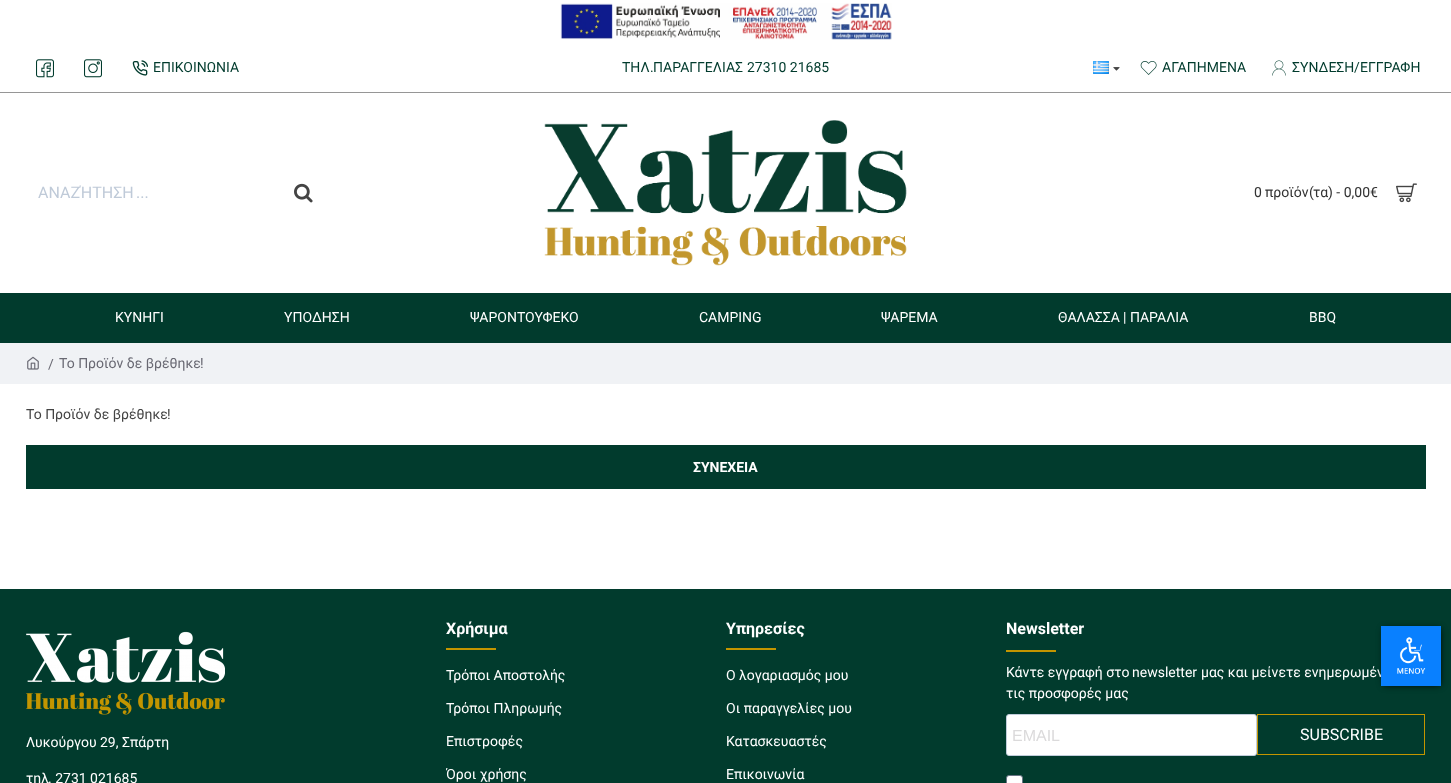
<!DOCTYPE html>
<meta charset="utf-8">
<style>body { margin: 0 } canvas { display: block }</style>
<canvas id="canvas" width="1451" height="783"></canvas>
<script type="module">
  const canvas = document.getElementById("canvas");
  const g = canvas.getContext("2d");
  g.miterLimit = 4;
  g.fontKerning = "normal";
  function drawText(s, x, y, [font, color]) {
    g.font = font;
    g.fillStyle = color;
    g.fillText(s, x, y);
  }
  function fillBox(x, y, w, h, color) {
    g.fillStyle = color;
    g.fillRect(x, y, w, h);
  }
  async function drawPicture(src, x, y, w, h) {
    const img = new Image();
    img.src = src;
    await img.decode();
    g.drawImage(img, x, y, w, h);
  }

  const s1 = ["14px Roboto", "#013B2D"];
  const s2 = ["14px 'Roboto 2'", "#013B2D"];
  const s3 = ["16px Roboto", "#BFCAD8"];
  const s4 = ["16px 'Roboto 2'", "#BFCAD8"];
  const s5 = ["14px 'Roboto 2'", "#333333"];
  const s6 = ["14px Roboto", "#333333"];
  const s7 = ["14px Roboto", "#FFFFFF"];
  const s8 = ["14px 'Roboto 2'", "#FFFFFF"];
  const s9 = ["14px 'Roboto 2'", "#696973"];
  const s10 = ["14px Roboto", "#696973"];
  const s11 = ["14px Roboto", "#444444"];
  const s12 = ["14px 'Roboto 2'", "#444444"];
  const s13 = ["bold 14px Roboto", "#FFFFFF"];
  const s14 = ["bold 16px Roboto", "#FFFFFF"];
  const s15 = ["bold 16px 'Roboto 2'", "#FFFFFF"];
  const s16 = ["16px Liberation Sans", "#DBDADB"];
  const s17 = ["16px 'Roboto 2'", "#FFFFFF"];

  fillBox(0, 0, 1451, 783, "#FFFFFF");
  await drawPicture("pic1.png", 560, 3, 332, 37);
  await drawPicture("pic2.png", 36, 59, 18, 19);
  await drawPicture("pic3.png", 84, 59, 18, 19);
  await drawPicture("pic4.png", 132, 60, 16, 16);
  drawText("ΕΠΙΚΟΙΝΩΝΙΑ", 153, 72, s1);
  drawText("ΤΗΛ ΠΑΡΑΓΓΕΛΙΑΣ", 622, 72, s1);
  drawText("27310 21685", 747, 72, s2);
  drawText(".", 650, 72, s2);
  await drawPicture("pic5.png", 1093, 61, 16, 13);
  await drawPicture("pic6.png", 1113, 67, 7, 4);
  await drawPicture("pic7.png", 1140, 61, 17, 14);
  drawText("ΑΓΑΠΗΜΕΝΑ", 1162, 72, s1);
  await drawPicture("pic8.png", 1272, 60, 14, 16);
  drawText("ΣΥΝΔΕΣΗ", 1292, 72, s1);
  drawText("/", 1354, 72, s2);
  drawText("ΕΓΓΡΑΦΗ", 1360, 72, s1);
  drawText("ΑΝΑΖΉΤΗΣΗ", 38, 198, s3);
  drawText("...", 136, 198, s4);
  await drawPicture("pic9.png", 294, 183, 19, 20);
  await drawPicture("pic10.png", 544, 120, 363, 146);
  drawText("0", 1254, 197, s5);
  drawText("προϊόν", 1265, 197, s6);
  drawText("(", 1309, 197, s5);
  drawText("τα", 1313, 197, s6);
  drawText(") - 0,00€", 1328, 197, s5);
  await drawPicture("pic11.png", 1396, 183, 21, 20);
  fillBox(0, 293, 1451, 50, "#013B2D");
  drawText("ΚΥΝΗΓΙ", 115, 322, s7);
  drawText("ΥΠΟΔΗΣΗ", 284, 322, s7);
  drawText("ΨΑΡΟΝΤΟΥΦΕΚΟ", 470, 322, s7);
  drawText("CAMPING", 699, 322, s8);
  drawText("ΨΑΡΕΜΑ", 881, 322, s7);
  drawText("ΘΑΛΑΣΣΑ", 1058, 322, s7);
  drawText("|", 1123, 322, s8);
  drawText("ΠΑΡΑΛΙΑ", 1130, 322, s7);
  drawText("BBQ", 1309, 322, s8);
  fillBox(0, 92, 1451, 1, "#969696");
  fillBox(0, 343, 1451, 41, "#F0F2F5");
  await drawPicture("pic12.png", 27, 356, 12, 14);
  drawText("/", 48, 369, s9);
  drawText("Το Προϊόν δε βρέθηκε", 59, 368, s10);
  drawText("!", 200, 368, s9);
  drawText("Το Προϊόν δε βρέθηκε", 26, 419, s11);
  drawText("!", 167, 419, s12);
  fillBox(26, 445, 1400, 44, "#013B2D");
  drawText("ΣΥΝΕΧΕΙΑ", 693, 472, s13);
  fillBox(0, 589, 1451, 194, "#013B2D");
  drawText("Χρήσιμα", 446, 634, s14);
  fillBox(446, 648, 50, 2, "#C39500");
  drawText("Τρόποι Αποστολής", 446, 680, s7);
  drawText("Τρόποι Πληρωμής", 446, 713, s7);
  drawText("Επιστροφές", 446, 746, s7);
  drawText("Όροι χρήσης", 446, 779, s7);
  drawText("Υπηρεσίες", 726, 634, s14);
  fillBox(726, 648, 50, 2, "#C39500");
  drawText("Ο λογαριασμός μου", 726, 680, s7);
  drawText("Οι παραγγελίες μου", 726, 713, s7);
  drawText("Κατασκευαστές", 726, 746, s7);
  drawText("Επικοινωνία", 726, 779, s7);
  drawText("Newsletter", 1006, 634, s15);
  fillBox(1006, 650, 50, 2, "#C39500");
  drawText("Κάντε εγγραφή στο", 1006, 677, s7);
  drawText("newsletter", 1132, 677, s8);
  drawText("μας και μείνετε ενημερωμέν", 1201, 677, s7);
  drawText("τις προσφορές μας", 1006, 698, s7);
  g.beginPath();
  g.roundRect(1006.5, 714.5, 250, 41, 2.5);
  g.fill();
  g.strokeStyle = "#C0CCDA";
  g.stroke();
  drawText("EMAIL", 1012, 741, s16);
  g.strokeStyle = "#C39500";
  g.strokeRect(1257.5, 714.5, 167, 40);
  drawText("SUBSCRIBE", 1300, 740, s17);
  g.beginPath();
  g.roundRect(1006.5, 775.5, 16, 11, 2.5);
  g.fill();
  g.strokeStyle = "#687484";
  g.stroke();
  await drawPicture("pic13.png", 26, 631, 199, 84);
  drawText("Λυκούργου", 26, 747, s7);
  drawText("29,", 100, 747, s8);
  drawText("Σπάρτη", 122, 747, s7);
  drawText("τηλ", 26, 783, s7);
  drawText(". 2731 021685", 48, 783, s8);
  g.fillStyle = "#000000";
  g.filter = "blur(3.5px)";
  g.beginPath();
  g.rect(1384, 629, 56, 56);
  g.fill();
  g.filter = "none";
  fillBox(1381, 626, 60, 60, "#0980FF");
  await drawPicture("pic14.png", 1397, 637, 29, 37);
</script>
